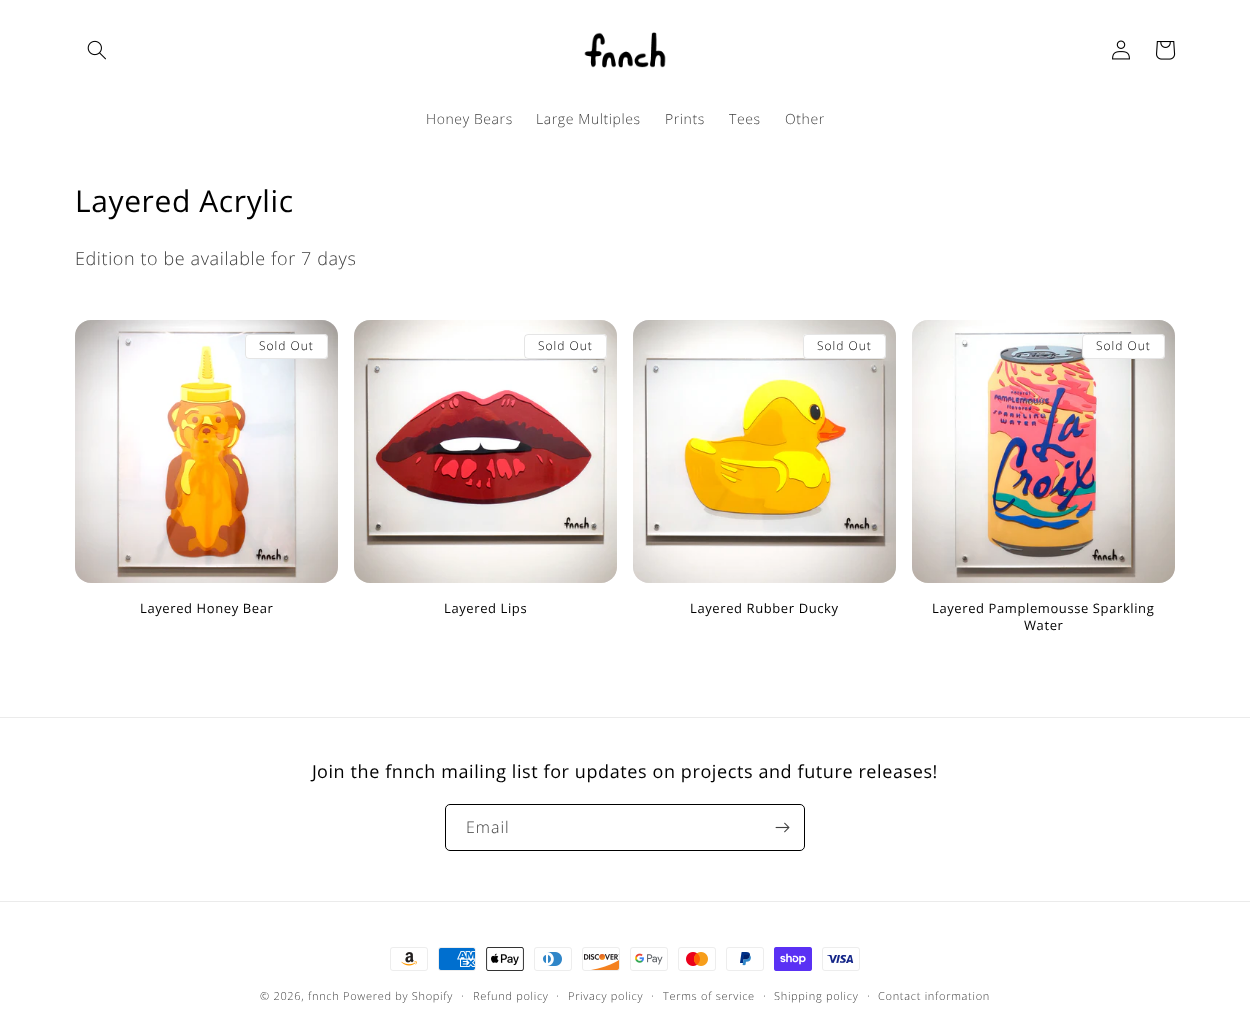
<!DOCTYPE html>
<meta charset="utf-8">
<style>body { margin: 0 } canvas { display: block }</style>
<canvas id="canvas" width="1250" height="1036"></canvas>
<script type="module">
  const canvas = document.getElementById("canvas");
  const g = canvas.getContext("2d");
  g.miterLimit = 4;
  g.fontKerning = "normal";
  function drawText(s, x, y, [font, color]) {
    g.font = font;
    g.fillStyle = color;
    g.fillText(s, x, y);
  }
  function fillBox(x, y, w, h, color) {
    g.fillStyle = color;
    g.fillRect(x, y, w, h);
  }
  function fillRounded(x, y, w, h, r, color) {
    g.fillStyle = color;
    g.beginPath();
    g.roundRect(x, y, w, h, r);
    g.fill();
  }
  async function drawPicture(src, x, y, w, h) {
    const img = new Image();
    img.src = src;
    await img.decode();
    g.drawImage(img, x, y, w, h);
  }

  const s1 = ["300 14px Open Sans", "#404040"];
  const s2 = ["30px Open Sans", "#000000"];
  const s3 = ["300 18px Open Sans", "#404040"];
  const s4 = ["300 12px Open Sans", "#000000"];
  const s5 = ["13px Open Sans", "#000000"];
  const s6 = ["18px Open Sans", "#000000"];
  const s7 = ["300 16px Open Sans", "#404040"];
  const s8 = ["300 11px Open Sans", "#404040"];
  const s9 = ["300 12px Open Sans", "#404040"];

  fillBox(0, 0, 1250, 1036, "#FFFFFF");
  await drawPicture("pic1.png", 87, 40, 19, 20);
  await drawPicture("pic2.png", 584, 32, 82, 36);
  await drawPicture("pic3.png", 1112, 40, 18, 20);
  await drawPicture("pic4.png", 1156, 41, 20, 19);
  g.letterSpacing = "0.6px";
  drawText("Honey Bears", 426, 124, s1);
  drawText("Large Multiples", 536, 124, s1);
  drawText("Prints", 665, 124, s1);
  drawText("Tees", 729, 124, s1);
  drawText("Other", 785, 124, s1);
  drawText("Layered Acrylic", 75, 212, s2);
  drawText("Edition to be available for 7 days", 75, 265, s3);
  fillRounded(75, 320, 263, 263, 16, "#F3F3F3");
  await drawPicture("pic5.png", 75, 320, 263, 263);
  fillRounded(245, 334, 83, 25, 4, "#FFFFFF");
  g.beginPath();
  g.roundRect(245.5, 334.5, 82, 24, 3.5);
  g.strokeStyle = "rgba(0, 0, 0, 0.1)";
  g.stroke();
  g.letterSpacing = "1px";
  drawText("Sold Out", 259, 350, s4);
  g.letterSpacing = "0.6px";
  drawText("Layered Honey Bear", 140, 613, s5);
  fillRounded(354, 320, 263, 263, 16, "#F3F3F3");
  await drawPicture("pic6.png", 354, 320, 263, 263);
  fillRounded(524, 334, 83, 25, 4, "#FFFFFF");
  g.beginPath();
  g.roundRect(524.5, 334.5, 82, 24, 3.5);
  g.stroke();
  g.letterSpacing = "1px";
  drawText("Sold Out", 538, 350, s4);
  g.letterSpacing = "0.6px";
  drawText("Layered Lips", 444, 613, s5);
  fillRounded(633, 320, 263, 263, 16, "#F3F3F3");
  await drawPicture("pic7.png", 633, 320, 263, 263);
  fillRounded(803, 334, 83, 25, 4, "#FFFFFF");
  g.beginPath();
  g.roundRect(803.5, 334.5, 82, 24, 3.5);
  g.stroke();
  g.letterSpacing = "1px";
  drawText("Sold Out", 817, 350, s4);
  g.letterSpacing = "0.6px";
  drawText("Layered Rubber Ducky", 690, 613, s5);
  fillRounded(912, 320, 263, 263, 16, "#F3F3F3");
  await drawPicture("pic8.png", 912, 320, 263, 263);
  fillRounded(1082, 334, 83, 25, 4, "#FFFFFF");
  g.beginPath();
  g.roundRect(1082.5, 334.5, 82, 24, 3.5);
  g.stroke();
  g.letterSpacing = "1px";
  drawText("Sold Out", 1096, 350, s4);
  g.letterSpacing = "0.6px";
  drawText("Layered Pamplemousse Sparkling", 932, 613, s5);
  drawText("Water", 1024, 630, s5);
  fillBox(0, 717, 1250, 1, "#EBEBEB");
  drawText("J", 312, 778, s6);
  drawText("oin the fnnch mailing list for updates on projects and future releases!", 317, 778, s6);
  g.beginPath();
  g.roundRect(445.5, 804.5, 359, 46, 4.5);
  g.strokeStyle = "#000000";
  g.stroke();
  g.letterSpacing = "1px";
  drawText("Email", 466, 833, s7);
  await drawPicture("pic9.png", 775, 822, 15, 11);
  fillBox(0, 901, 1250, 1, "#EBEBEB");
  await drawPicture("pic10.png", 390, 947, 38, 24);
  await drawPicture("pic11.png", 438, 947, 38, 24);
  await drawPicture("pic12.png", 486, 947, 38, 24);
  await drawPicture("pic13.png", 534, 947, 38, 24);
  await drawPicture("pic14.png", 582, 947, 38, 24);
  await drawPicture("pic15.png", 630, 947, 38, 24);
  await drawPicture("pic16.png", 678, 947, 38, 24);
  await drawPicture("pic17.png", 726, 947, 38, 24);
  await drawPicture("pic18.png", 774, 947, 38, 24);
  await drawPicture("pic19.png", 822, 947, 38, 24);
  g.letterSpacing = "0.7px";
  drawText("© 2026, fnnch Powered by Shopify", 260, 1000, s8);
  drawText("·", 461, 1000, s9);
  drawText("Refund policy", 473, 1000, s8);
  drawText("·", 556, 1000, s9);
  drawText("Privacy policy", 568, 1000, s8);
  drawText("·", 651, 1000, s9);
  drawText("Terms of service", 663, 1000, s8);
  drawText("·", 763, 1000, s9);
  drawText("Shipping policy", 774, 1000, s8);
  drawText("·", 867, 1000, s9);
  drawText("Contact information", 878, 1000, s8);
</script>
